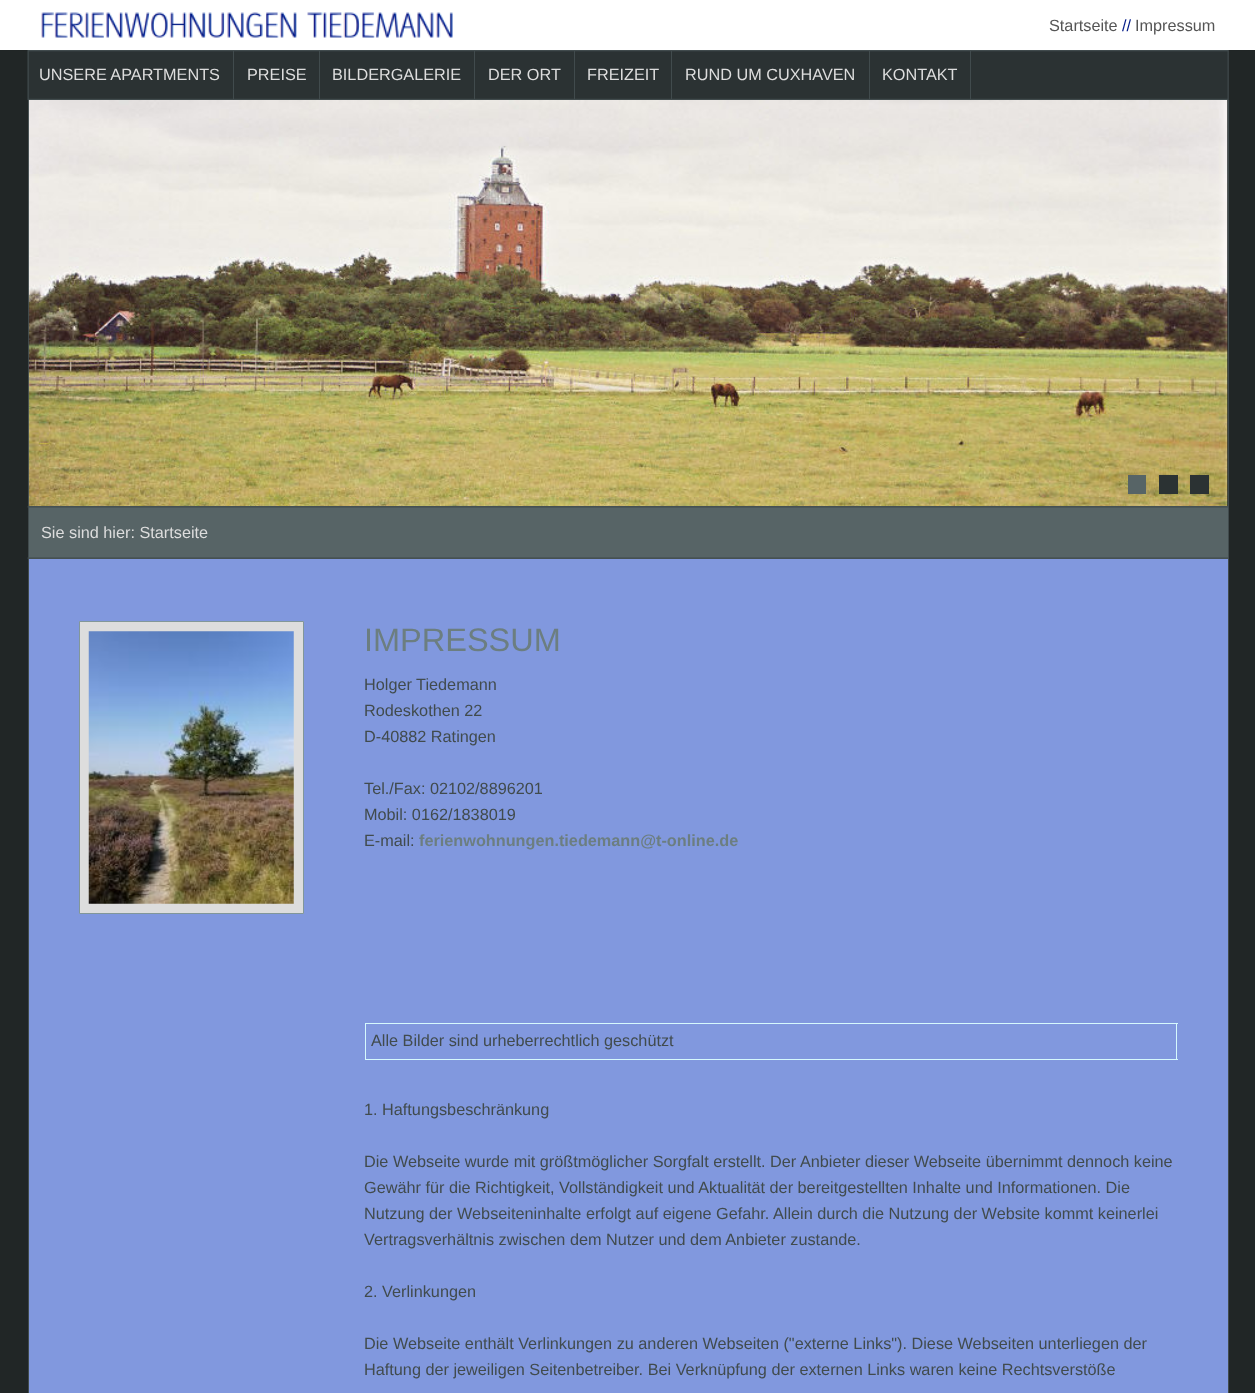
<!DOCTYPE html>
<meta charset="utf-8">
<style>body { margin: 0 } canvas { display: block }</style>
<canvas id="canvas" width="1255" height="1393"></canvas>
<script type="module">
  const canvas = document.getElementById("canvas");
  const g = canvas.getContext("2d");
  g.miterLimit = 4;
  g.fontKerning = "normal";
  function drawText(s, x, y, [font, color]) {
    g.font = font;
    g.fillStyle = color;
    g.fillText(s, x, y);
  }
  function fillBox(x, y, w, h, color) {
    g.fillStyle = color;
    g.fillRect(x, y, w, h);
  }
  async function drawPicture(src, x, y, w, h) {
    const img = new Image();
    img.src = src;
    await img.decode();
    g.drawImage(img, x, y, w, h);
  }

  const s1 = ["16.25px Liberation Sans", "#555555"];
  const s2 = ["16.25px Liberation Sans", "#001987"];
  const s3 = ["16.25px Liberation Sans", "#DDDDDD"];
  const s4 = ["32.5px Liberation Sans", "#6C7E80"];
  const s5 = ["16.25px Liberation Sans", "#414B4D"];
  const s6 = ["bold 16.25px Liberation Sans", "#6C7E80"];

  fillBox(0, 0, 1255, 1393, "#212626");
  fillBox(0, 0, 1255, 50, "#FFFFFF");
  await drawPicture("pic1.png", 40, 0, 1176, 50);
  drawText("Startseite", 1049, 31, s1);
  drawText("//", 1122, 31, s2);
  drawText("Impressum", 1135, 31, s1);
  await drawPicture("pic2.png", 27, 50, 1202, 50);
  fillBox(233, 50, 1, 50, "#414B4D");
  drawText("UNSERE APARTMENTS", 39, 80, s3);
  fillBox(319, 50, 1, 50, "#414B4D");
  drawText("PREISE", 247, 80, s3);
  fillBox(474, 50, 1, 50, "#414B4D");
  drawText("BILDERGALERIE", 332, 80, s3);
  fillBox(574, 50, 1, 50, "#414B4D");
  drawText("DER ORT", 488, 80, s3);
  fillBox(671, 50, 1, 50, "#414B4D");
  drawText("FREIZEIT", 587, 80, s3);
  fillBox(869, 50, 1, 50, "#414B4D");
  drawText("RUND UM CUXHAVEN", 685, 80, s3);
  fillBox(970, 50, 1, 50, "#414B4D");
  drawText("KONTAKT", 882, 80, s3);
  fillBox(1228, 100, 1, 459, "#414B4D");
  fillBox(28, 100, 1, 406, "#414B4D");
  await drawPicture("pic3.png", 28, 100, 1200, 406);
  fillBox(1128, 475, 18, 19, "#576466");
  fillBox(1159, 475, 19, 19, "#2B3233");
  fillBox(1190, 475, 19, 19, "#2B3233");
  fillBox(29, 506, 1199, 53, "#576466");
  await drawPicture("pic4.png", 27, 506, 1201, 53);
  fillBox(28, 506, 1, 53, "#414B4D");
  drawText("Sie sind hier: Startseite", 41, 538, s3);
  fillBox(29, 559, 1199, 834, "#8198DE");
  fillBox(1228, 559, 1, 834, "#414B4D");
  fillBox(28, 559, 1, 834, "#414B4D");
  g.fillStyle = "#DDDDDD";
  g.beginPath();
  g.rect(79.5, 621.5, 224, 292);
  g.fill();
  g.strokeStyle = "#829799";
  g.stroke();
  await drawPicture("pic5.png", 88, 631, 206, 273);
  drawText("IMPRESSUM", 364, 651, s4);
  drawText("Holger Tiedemann", 364, 690, s5);
  drawText("Rodeskothen 22", 364, 716, s5);
  drawText("D-40882 Ratingen", 364, 742, s5);
  drawText("Tel./Fax: 02102/8896201", 364, 794, s5);
  drawText("Mobil: 0162/1838019", 364, 820, s5);
  drawText("E-mail:", 364, 846, s5);
  drawText("ferienwohnungen.tiedemann@t-online.de", 419, 846, s6);
  fillBox(365, 1023, 813, 1, "#D6F9FD");
  fillBox(1176, 1023, 1, 37, "#D6F9FD");
  fillBox(365, 1059, 813, 1, "#D6F9FD");
  fillBox(365, 1023, 1, 37, "#D6F9FD");
  drawText("Alle Bilder sind urheberrechtlich geschützt", 371, 1046, s5);
  drawText("1. Haftungsbeschränkung", 364, 1115, s5);
  drawText("Die Webseite wurde mit größtmöglicher Sorgfalt erstellt. Der Anbieter dieser Webseite übernimmt dennoch keine", 364, 1167, s5);
  drawText("Gewähr für die Richtigkeit, Vollständigkeit und Aktualität der bereitgestellten Inhalte und Informationen. Die", 364, 1193, s5);
  drawText("Nutzung der Webseiteninhalte erfolgt auf eigene Gefahr. Allein durch die Nutzung der Website kommt keinerlei", 364, 1219, s5);
  drawText("Vertragsverhältnis zwischen dem Nutzer und dem Anbieter zustande.", 364, 1245, s5);
  drawText("2. Verlinkungen", 364, 1297, s5);
  drawText("Die Webseite enthält Verlinkungen zu anderen Webseiten (\"externe Links\"). Diese Webseiten unterliegen der", 364, 1349, s5);
  drawText("Haftung der jeweiligen Seitenbetreiber. Bei Verknüpfung der externen Links waren keine Rechtsverstöße", 364, 1375, s5);
</script>
